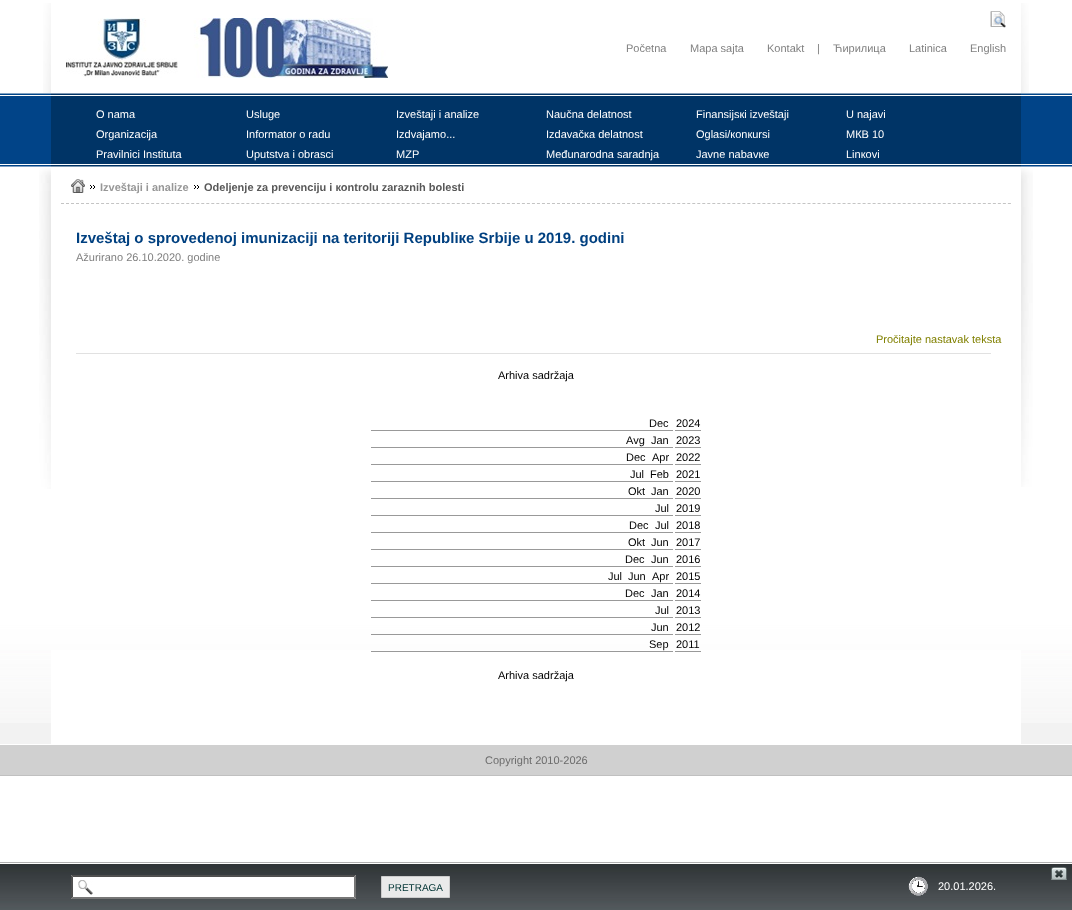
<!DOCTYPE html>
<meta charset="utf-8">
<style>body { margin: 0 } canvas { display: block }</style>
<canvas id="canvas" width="1072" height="910"></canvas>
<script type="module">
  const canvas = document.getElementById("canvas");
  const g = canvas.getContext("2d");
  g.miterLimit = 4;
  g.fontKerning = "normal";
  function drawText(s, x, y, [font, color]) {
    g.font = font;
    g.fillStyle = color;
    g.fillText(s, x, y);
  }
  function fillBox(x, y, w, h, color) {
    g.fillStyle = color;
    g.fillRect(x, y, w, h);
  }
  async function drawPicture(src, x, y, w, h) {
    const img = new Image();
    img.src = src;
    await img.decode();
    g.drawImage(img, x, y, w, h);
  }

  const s1 = ["11px Liberation Sans", "#808080"];
  const s2 = ["11px Liberation Sans", "#FFFFFF"];
  const s3 = ["bold 11px Liberation Sans", "#979797"];
  const s4 = ["bold 11px Liberation Sans", "#585858"];
  const s5 = ["bold 15px Liberation Sans", "#004080"];
  const s6 = ["11px Liberation Sans", "#808000"];
  const s7 = ["11px Liberation Sans", "#000000"];
  const s8 = ["11px Liberation Sans", "#6C6C6C"];
  const s9 = ["10px Liberation Sans", "#003333"];

  fillBox(0, 0, 1072, 910, "#FFFFFF");
  await drawPicture("pic1.png", 43, 3, 8, 90);
  await drawPicture("pic2.png", 66, 18, 322, 60);
  await drawPicture("pic3.png", 990, 11, 16, 17);
  drawText("Početna", 626, 52, s1);
  drawText("Mapa sajta", 690, 52, s1);
  drawText("Kontakt", 767, 52, s1);
  drawText("|", 817, 52, s1);
  drawText("Ћирилица", 833, 52, s1);
  drawText("Latinica", 909, 52, s1);
  drawText("English", 970, 52, s1);
  await drawPicture("pic4.png", 1021, 3, 8, 90);
  await drawPicture("pic5.png", 0, 93, 1072, 74);
  await drawPicture("pic6.png", 51, 93, 970, 74);
  drawText("О nаmа", 96, 118, s2);
  drawText("Uslugе", 246, 118, s2);
  drawText("Izvеštајi i аnаlizе", 396, 118, s2);
  drawText("Nаučnа dеlаtnоst", 546, 118, s2);
  drawText("Finаnsiјsкi izvеštајi", 696, 118, s2);
  drawText("U nајаvi", 846, 118, s2);
  drawText("Оrgаnizаciја", 96, 138, s2);
  drawText("Infоrmаtоr о rаdu", 246, 138, s2);
  drawText("Izdvајаmо...", 396, 138, s2);
  drawText("Izdаvаčка dеlаtnоst", 546, 138, s2);
  drawText("Оglаsi/коnкursi", 696, 138, s2);
  drawText("MКB 10", 846, 138, s2);
  drawText("Prаvilnici Institutа", 96, 158, s2);
  drawText("Uputstvа i оbrаsci", 246, 158, s2);
  drawText("MZP", 396, 158, s2);
  drawText("Mеđunаrоdnа sаrаdnjа", 546, 158, s2);
  drawText("Јаvnе nаbаvке", 696, 158, s2);
  drawText("Linкоvi", 846, 158, s2);
  fillBox(0, 723, 1072, 21, "#F2F2F2");
  await drawPicture("pic7.png", 0, 167, 1072, 556);
  await drawPicture("pic8.png", 39, 168, 12, 321);
  fillBox(51, 650, 970, 94, "#FFFFFF");
  g.beginPath();
  g.moveTo(61, 203.5);
  g.lineTo(1011, 203.5);
  g.strokeStyle = "#C4C4C4";
  g.setLineDash([3, 2.01]);
  g.stroke();
  await drawPicture("pic9.png", 71, 179, 14, 14);
  await drawPicture("pic10.png", 90, 185, 5, 4);
  drawText("Izvеštајi i аnаlizе", 100, 191, s3);
  await drawPicture("pic10.png", 194, 185, 5, 4);
  drawText("Оdеljеnjе zа prеvеnciјu i коntrоlu zаrаznih bоlеsti", 204, 191, s4);
  drawText("Izvеštај о sprоvеdеnој imunizаciјi nа tеritоriјi Rеpubliке Srbiје u 2019. gоdini", 76, 243, s5);
  drawText("Ažurirano 26.10.2020. godine", 76, 261, s1);
  drawText("Pročitajte nastavak teksta", 876, 343, s6);
  fillBox(76, 353, 915, 1, "#E1E1E1");
  drawText("Arhiva sadržaja", 498, 379, s7);
  fillBox(371, 430, 302, 1, "#999999");
  drawText("Dec", 649, 427, s7);
  fillBox(675, 430, 26, 1, "#999999");
  drawText("2024", 676, 427, s7);
  fillBox(371, 447, 302, 1, "#999999");
  drawText("Avg", 626, 444, s7);
  drawText("Jan", 651, 444, s7);
  fillBox(675, 447, 26, 1, "#999999");
  drawText("2023", 676, 444, s7);
  fillBox(371, 464, 302, 1, "#999999");
  drawText("Dec", 626, 461, s7);
  drawText("Apr", 652, 461, s7);
  fillBox(675, 464, 26, 1, "#999999");
  drawText("2022", 676, 461, s7);
  fillBox(371, 481, 302, 1, "#999999");
  drawText("Јul", 630, 478, s7);
  drawText("Feb", 650, 478, s7);
  fillBox(675, 481, 26, 1, "#999999");
  drawText("2021", 676, 478, s7);
  fillBox(371, 498, 302, 1, "#999999");
  drawText("Okt", 628, 495, s7);
  drawText("Jan", 651, 495, s7);
  fillBox(675, 498, 26, 1, "#999999");
  drawText("2020", 676, 495, s7);
  fillBox(371, 515, 302, 1, "#999999");
  drawText("Јul", 655, 512, s7);
  fillBox(675, 515, 26, 1, "#999999");
  drawText("2019", 676, 512, s7);
  fillBox(371, 532, 302, 1, "#999999");
  drawText("Dec", 629, 529, s7);
  drawText("Јul", 655, 529, s7);
  fillBox(675, 532, 26, 1, "#999999");
  drawText("2018", 676, 529, s7);
  fillBox(371, 549, 302, 1, "#999999");
  drawText("Okt", 628, 546, s7);
  drawText("Јun", 651, 546, s7);
  fillBox(675, 549, 26, 1, "#999999");
  drawText("2017", 676, 546, s7);
  fillBox(371, 566, 302, 1, "#999999");
  drawText("Dec", 625, 563, s7);
  drawText("Јun", 651, 563, s7);
  fillBox(675, 566, 26, 1, "#999999");
  drawText("2016", 676, 563, s7);
  fillBox(371, 583, 302, 1, "#999999");
  drawText("Јul", 608, 580, s7);
  drawText("Јun", 628, 580, s7);
  drawText("Apr", 652, 580, s7);
  fillBox(675, 583, 26, 1, "#999999");
  drawText("2015", 676, 580, s7);
  fillBox(371, 600, 302, 1, "#999999");
  drawText("Dec", 625, 597, s7);
  drawText("Jan", 651, 597, s7);
  fillBox(675, 600, 26, 1, "#999999");
  drawText("2014", 676, 597, s7);
  fillBox(371, 617, 302, 1, "#999999");
  drawText("Јul", 655, 614, s7);
  fillBox(675, 617, 26, 1, "#999999");
  drawText("2013", 676, 614, s7);
  fillBox(371, 634, 302, 1, "#999999");
  drawText("Јun", 651, 631, s7);
  fillBox(675, 634, 26, 1, "#999999");
  drawText("2012", 676, 631, s7);
  fillBox(371, 651, 302, 1, "#999999");
  drawText("Sep", 649, 648, s7);
  fillBox(675, 651, 26, 1, "#999999");
  drawText("2011", 676, 648, s7);
  drawText("Arhiva sadržaja", 498, 679, s7);
  await drawPicture("pic11.png", 1021, 168, 12, 319);
  fillBox(0, 745, 1072, 30, "#D0D0D0");
  fillBox(0, 775, 1072, 1, "#C0C0C0");
  drawText("Copyright 2010-2026", 485, 764, s8);
  await drawPicture("pic12.png", 0, 862, 1072, 48);
  await drawPicture("pic13.png", 1051, 867, 16, 13);
  fillBox(71, 875, 285, 24, "#FFFFFF");
  await drawPicture("pic14.png", 78, 880, 15, 15);
  g.fillStyle = "#4F4F4F";
  g.beginPath();
  g.moveTo(71, 875);
  g.lineTo(356, 875);
  g.lineTo(354, 877);
  g.lineTo(73, 877);
  g.closePath();
  g.fill();
  g.fillStyle = "#767676";
  g.beginPath();
  g.moveTo(356, 875);
  g.lineTo(356, 899);
  g.lineTo(354, 897);
  g.lineTo(354, 877);
  g.closePath();
  g.fill();
  g.beginPath();
  g.moveTo(356, 899);
  g.lineTo(71, 899);
  g.lineTo(73, 897);
  g.lineTo(354, 897);
  g.closePath();
  g.fill();
  g.fillStyle = "#4F4F4F";
  g.beginPath();
  g.moveTo(71, 899);
  g.lineTo(71, 875);
  g.lineTo(73, 877);
  g.lineTo(73, 897);
  g.closePath();
  g.fill();
  g.fillStyle = "#EAEAEA";
  g.beginPath();
  g.rect(381.5, 876.5, 68, 21);
  g.fill();
  g.strokeStyle = "#CCCCCC";
  g.setLineDash([]);
  g.stroke();
  drawText("PRETRAGA", 388, 891, s9);
  await drawPicture("pic15.png", 908, 876, 20, 20);
  drawText("20.01.2026.", 938, 890, s2);
</script>
